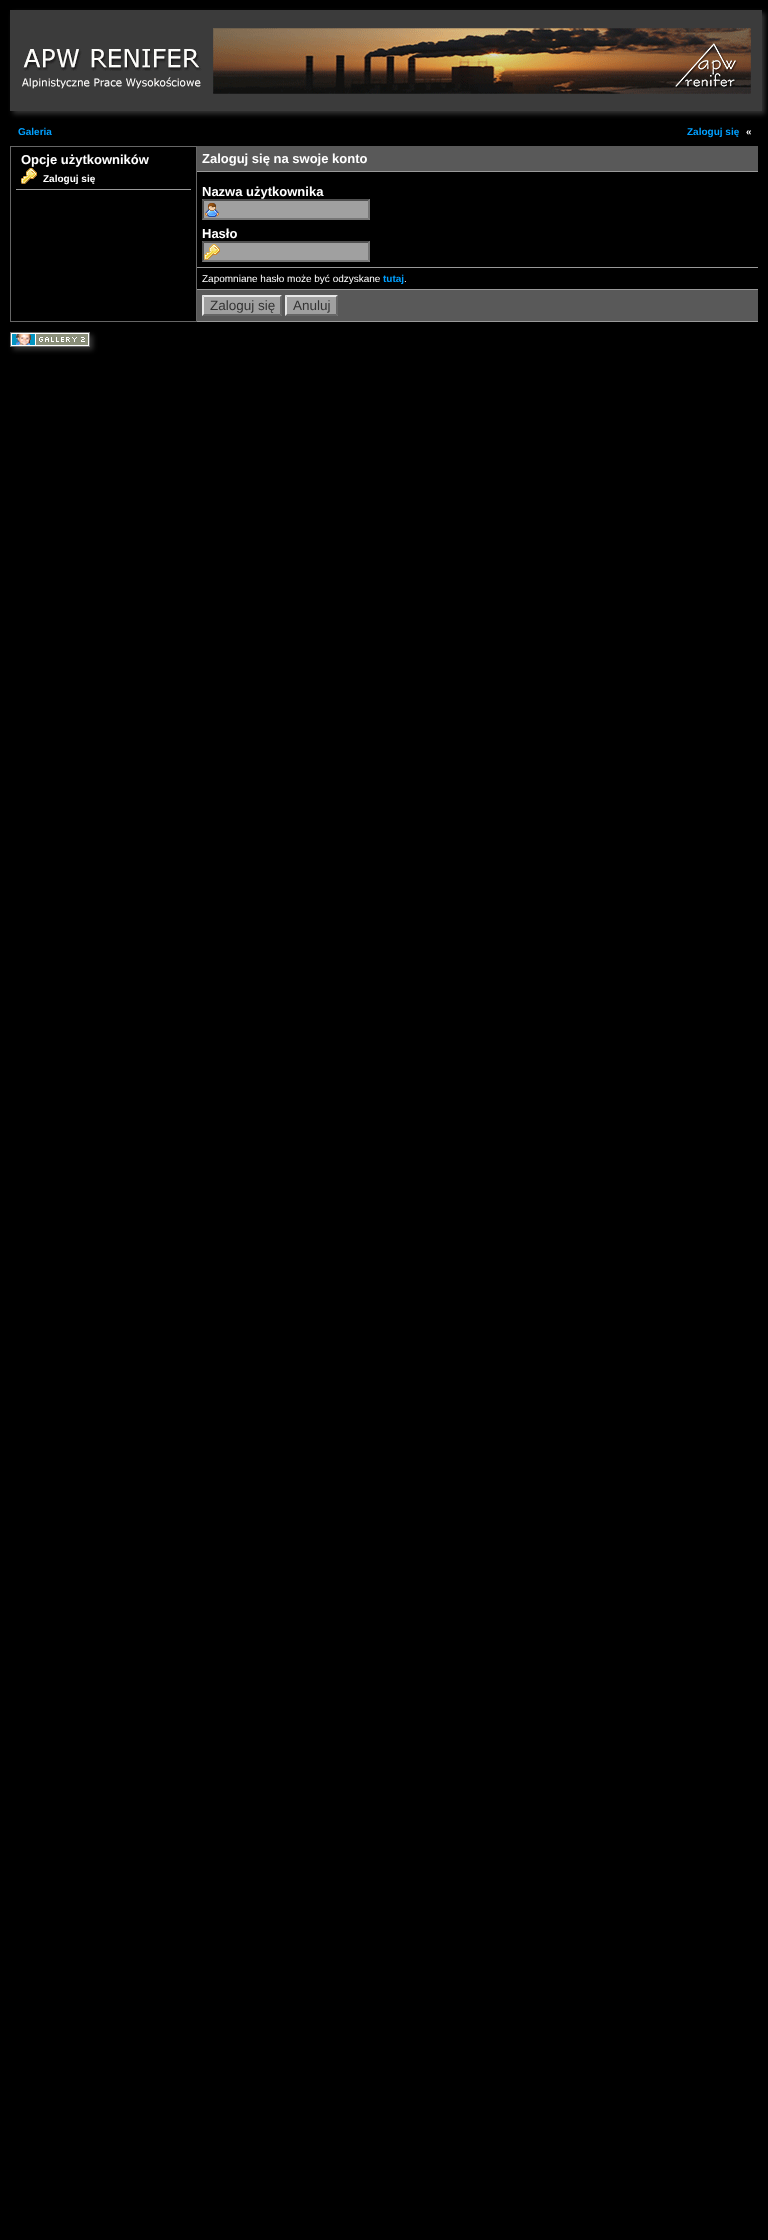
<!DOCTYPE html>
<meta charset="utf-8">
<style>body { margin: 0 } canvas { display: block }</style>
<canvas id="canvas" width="768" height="2240"></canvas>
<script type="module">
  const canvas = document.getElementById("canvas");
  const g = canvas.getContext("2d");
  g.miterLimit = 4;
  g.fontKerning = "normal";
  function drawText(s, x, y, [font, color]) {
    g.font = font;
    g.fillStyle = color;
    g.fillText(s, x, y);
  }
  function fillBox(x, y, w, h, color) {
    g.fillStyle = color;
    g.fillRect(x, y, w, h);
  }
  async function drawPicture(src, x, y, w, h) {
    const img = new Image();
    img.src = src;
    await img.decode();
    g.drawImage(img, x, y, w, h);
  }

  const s1 = ["bold 10px Liberation Sans", "#00A0FF"];
  const s2 = ["bold 10px Liberation Sans", "#FFFFFF"];
  const s3 = ["bold 13px Liberation Sans", "#FFFFFF"];
  const s4 = ["10px Liberation Sans", "#FFFFFF"];
  const s5 = ["13.5px Liberation Sans", "#333333"];

  fillBox(0, 0, 768, 2240, "#000000");
  g.fillStyle = "#333333";
  g.filter = "blur(2.5px)";
  g.beginPath();
  g.rect(13, 13, 752, 101);
  g.fill();
  g.filter = "none";
  await drawPicture("pic1.png", 10, 10, 752, 101);
  drawText("Galeria", 18, 135, s1);
  drawText("Zaloguj się", 687, 135, s1);
  drawText("«", 746, 135, s2);
  g.strokeStyle = "#666666";
  g.strokeRect(10.5, 146.5, 186, 175);
  fillBox(16, 189, 175, 1, "#999999");
  drawText("Opcje użytkowników", 21, 164, s3);
  await drawPicture("pic2.png", 21, 168, 16, 16);
  drawText("Zaloguj się", 43, 182, s2);
  fillBox(197, 146, 561, 25, "#595959");
  fillBox(197, 171, 561, 1, "#999999");
  drawText("Zaloguj się na swoje konto", 202, 163, s3);
  fillBox(197, 267, 561, 1, "#999999");
  drawText("Nazwa użytkownika", 202, 196, s3);
  fillBox(202, 199, 168, 21, "#A0A0A0");
  await drawPicture("pic3.png", 205, 203, 14, 14);
  g.fillStyle = "#4F4F4F";
  g.beginPath();
  g.moveTo(202, 199);
  g.lineTo(370, 199);
  g.lineTo(368, 201);
  g.lineTo(204, 201);
  g.closePath();
  g.fill();
  g.fillStyle = "#767676";
  g.beginPath();
  g.moveTo(370, 199);
  g.lineTo(370, 220);
  g.lineTo(368, 218);
  g.lineTo(368, 201);
  g.closePath();
  g.fill();
  g.beginPath();
  g.moveTo(370, 220);
  g.lineTo(202, 220);
  g.lineTo(204, 218);
  g.lineTo(368, 218);
  g.closePath();
  g.fill();
  g.fillStyle = "#4F4F4F";
  g.beginPath();
  g.moveTo(202, 220);
  g.lineTo(202, 199);
  g.lineTo(204, 201);
  g.lineTo(204, 218);
  g.closePath();
  g.fill();
  drawText("Hasło", 202, 238, s3);
  fillBox(202, 241, 168, 21, "#A0A0A0");
  await drawPicture("pic4.png", 204, 244, 16, 16);
  g.fillStyle = "#4F4F4F";
  g.beginPath();
  g.moveTo(202, 241);
  g.lineTo(370, 241);
  g.lineTo(368, 243);
  g.lineTo(204, 243);
  g.closePath();
  g.fill();
  g.fillStyle = "#767676";
  g.beginPath();
  g.moveTo(370, 241);
  g.lineTo(370, 262);
  g.lineTo(368, 260);
  g.lineTo(368, 243);
  g.closePath();
  g.fill();
  g.beginPath();
  g.moveTo(370, 262);
  g.lineTo(202, 262);
  g.lineTo(204, 260);
  g.lineTo(368, 260);
  g.closePath();
  g.fill();
  g.fillStyle = "#4F4F4F";
  g.beginPath();
  g.moveTo(202, 262);
  g.lineTo(202, 241);
  g.lineTo(204, 243);
  g.lineTo(204, 260);
  g.closePath();
  g.fill();
  fillBox(197, 289, 561, 1, "#999999");
  drawText("Zapomniane hasło może być odzyskane", 202, 282, s4);
  drawText("tutaj", 383, 282, s1);
  drawText(".", 404, 282, s4);
  fillBox(197, 290, 561, 31, "#595959");
  fillBox(197, 321, 561, 1, "#999999");
  fillBox(202, 295, 80, 21, "#A0A0A0");
  g.fillStyle = "#E7E7E7";
  g.beginPath();
  g.moveTo(202, 295);
  g.lineTo(282, 295);
  g.lineTo(280, 297);
  g.lineTo(204, 297);
  g.closePath();
  g.fill();
  g.fillStyle = "#666666";
  g.beginPath();
  g.moveTo(282, 295);
  g.lineTo(282, 316);
  g.lineTo(280, 314);
  g.lineTo(280, 297);
  g.closePath();
  g.fill();
  g.beginPath();
  g.moveTo(282, 316);
  g.lineTo(202, 316);
  g.lineTo(204, 314);
  g.lineTo(280, 314);
  g.closePath();
  g.fill();
  g.fillStyle = "#E7E7E7";
  g.beginPath();
  g.moveTo(202, 316);
  g.lineTo(202, 295);
  g.lineTo(204, 297);
  g.lineTo(204, 314);
  g.closePath();
  g.fill();
  drawText("Zaloguj się", 210, 310, s5);
  fillBox(285, 295, 53, 21, "#A0A0A0");
  g.fillStyle = "#E7E7E7";
  g.beginPath();
  g.moveTo(285, 295);
  g.lineTo(338, 295);
  g.lineTo(336, 297);
  g.lineTo(287, 297);
  g.closePath();
  g.fill();
  g.fillStyle = "#666666";
  g.beginPath();
  g.moveTo(338, 295);
  g.lineTo(338, 316);
  g.lineTo(336, 314);
  g.lineTo(336, 297);
  g.closePath();
  g.fill();
  g.beginPath();
  g.moveTo(338, 316);
  g.lineTo(285, 316);
  g.lineTo(287, 314);
  g.lineTo(336, 314);
  g.closePath();
  g.fill();
  g.fillStyle = "#E7E7E7";
  g.beginPath();
  g.moveTo(285, 316);
  g.lineTo(285, 295);
  g.lineTo(287, 297);
  g.lineTo(287, 314);
  g.closePath();
  g.fill();
  drawText("Anuluj", 293, 310, s5);
  g.filter = "blur(2.5px)";
  g.beginPath();
  g.rect(13, 335, 80, 15);
  g.fill();
  g.filter = "none";
  await drawPicture("pic5.png", 10, 332, 80, 15);
</script>
